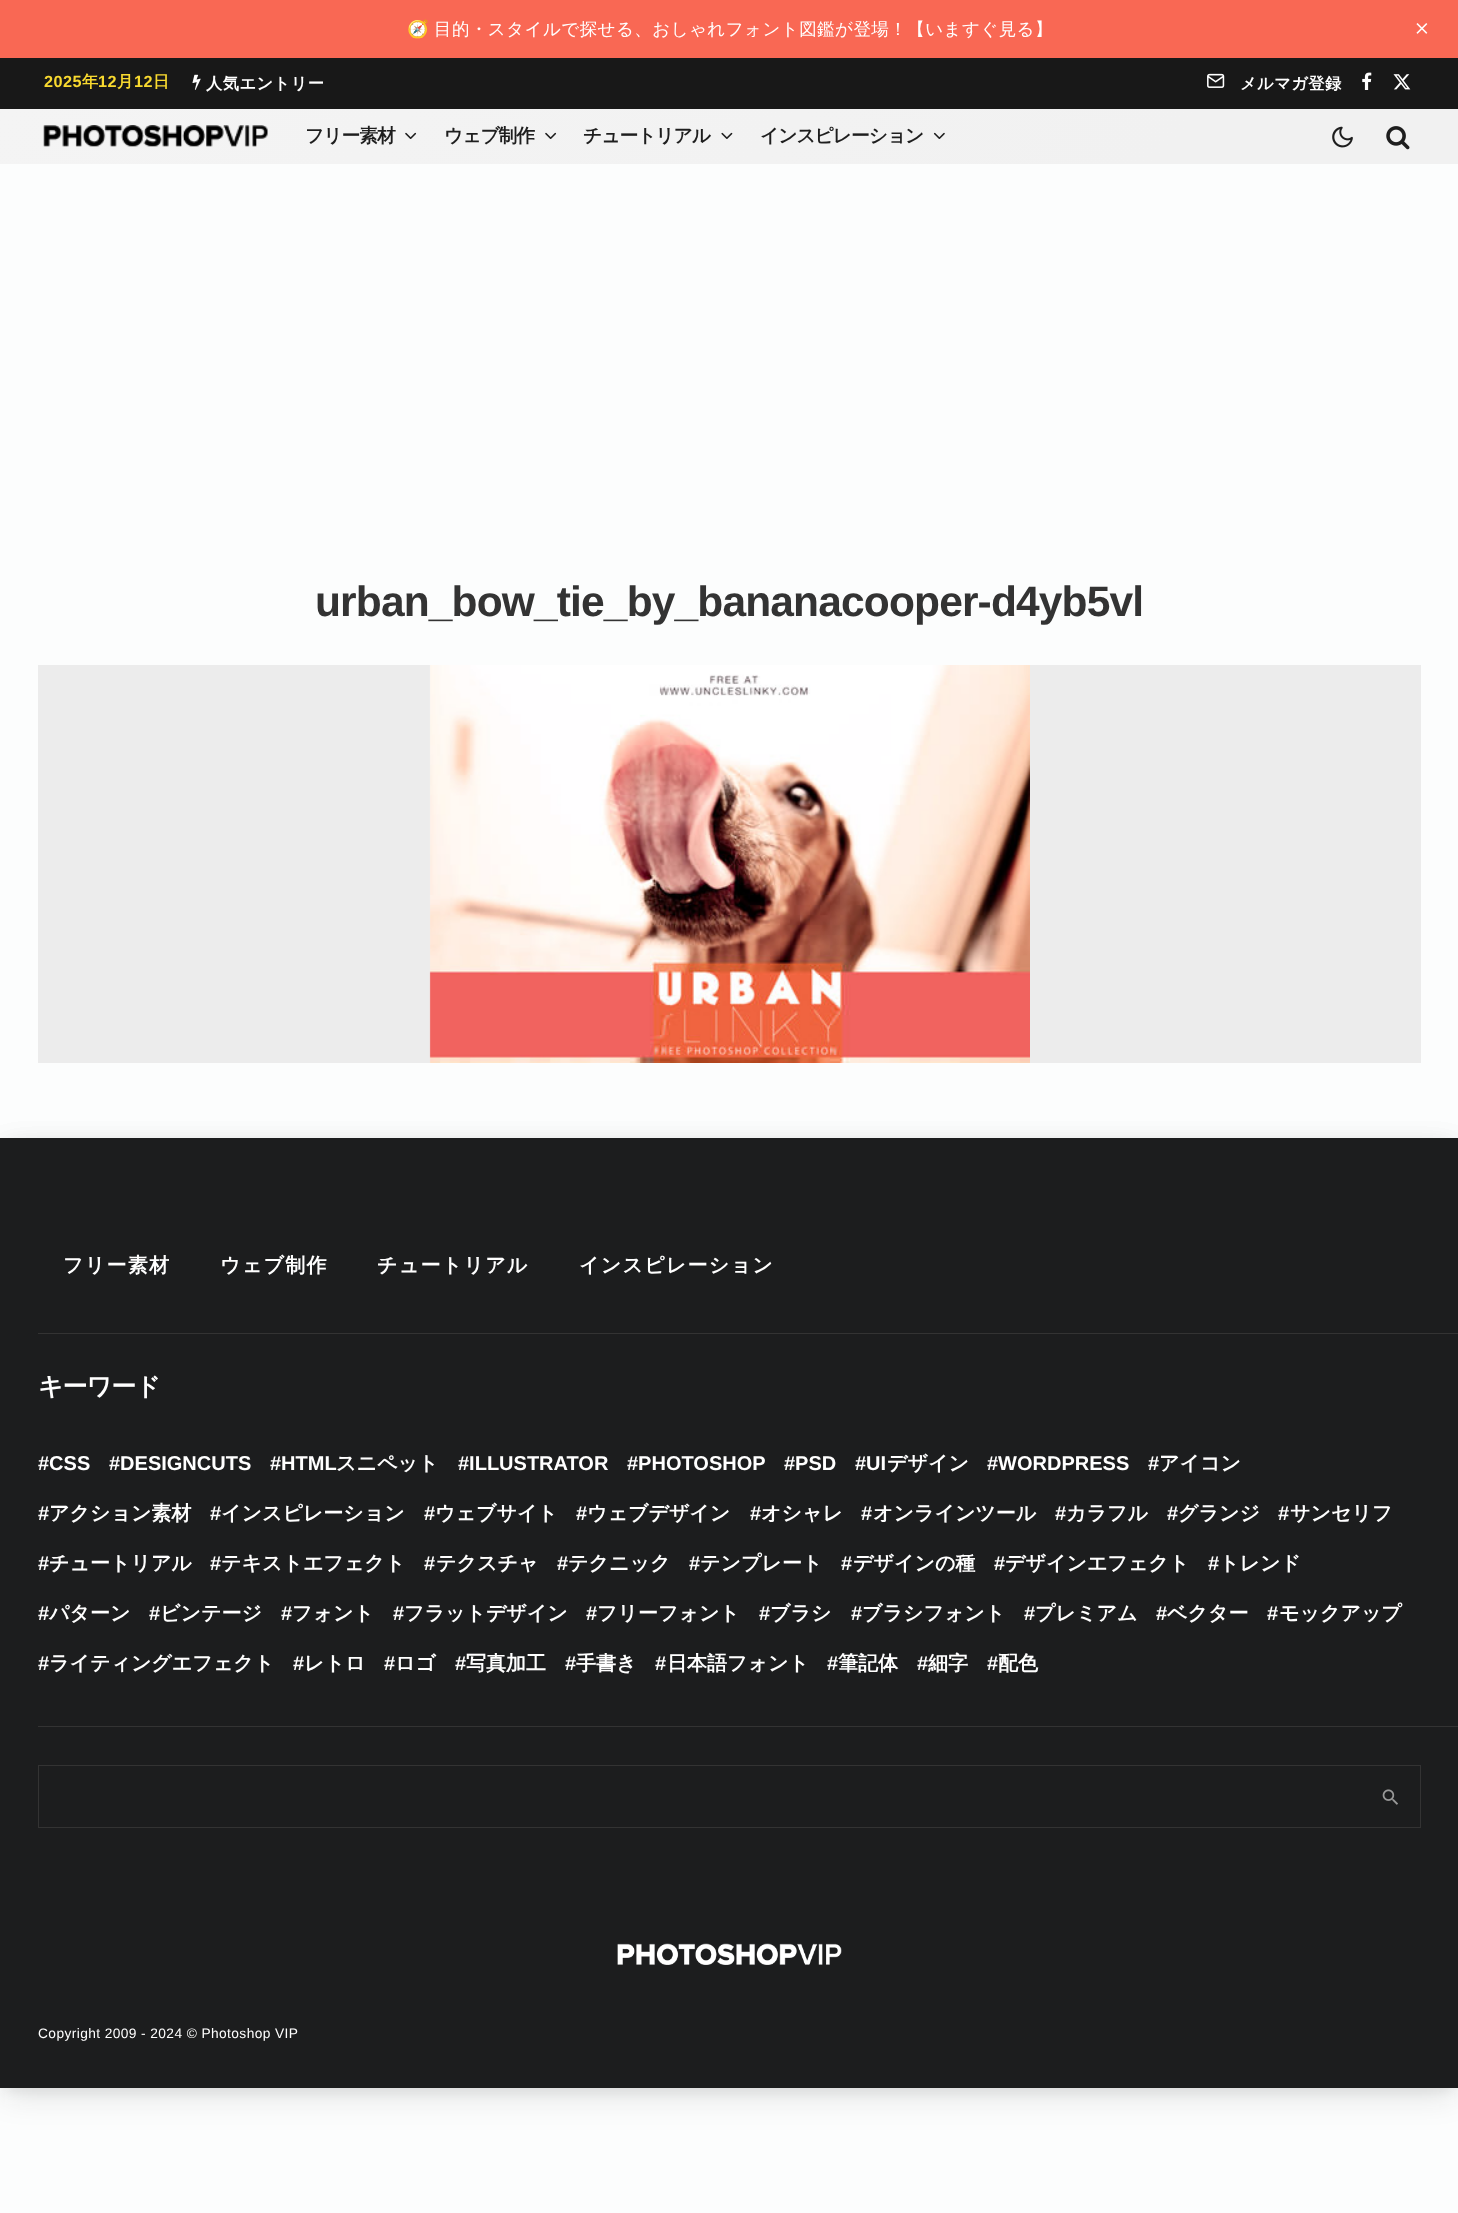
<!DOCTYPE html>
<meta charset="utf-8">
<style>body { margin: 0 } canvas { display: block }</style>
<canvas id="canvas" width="1458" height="2213"></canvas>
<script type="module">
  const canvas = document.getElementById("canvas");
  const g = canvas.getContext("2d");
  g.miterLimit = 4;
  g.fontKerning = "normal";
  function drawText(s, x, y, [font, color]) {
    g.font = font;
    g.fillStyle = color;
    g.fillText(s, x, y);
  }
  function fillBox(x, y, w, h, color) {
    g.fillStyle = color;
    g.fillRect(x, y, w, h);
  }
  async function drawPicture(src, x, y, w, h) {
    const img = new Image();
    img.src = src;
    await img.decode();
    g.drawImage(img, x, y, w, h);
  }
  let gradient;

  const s1 = ["17.5px Noto Color Emoji", "#FFFFFF"];
  const s2 = ["500 17.5px WenQuanYi Zen Hei", "#FFFFFF"];
  const s3 = ["bold 16.25px Liberation Sans", "#F8D92F"];
  const s4 = ["bold 16.25px WenQuanYi Zen Hei", "#F8D92F"];
  const s5 = ["bold 16.25px WenQuanYi Zen Hei", "#FFFFFF"];
  const s6 = ["bold 18.75px WenQuanYi Zen Hei", "#1E1E1E"];
  const s7 = ["bold 42.5px Liberation Sans", "#333333"];
  const s8 = ["bold 20px WenQuanYi Zen Hei", "#FFFFFF"];
  const s9 = ["bold 25px WenQuanYi Zen Hei", "#FFFFFF"];
  const s10 = ["bold 20px Liberation Sans", "#FFFFFF"];
  const s11 = ["13.75px Liberation Sans", "#FFFFFF"];

  fillBox(0, 0, 1458, 2213, "#FCFDFD");
  fillBox(0, 0, 1458, 58, "#F96854");
  g.letterSpacing = "0.45px";
  drawText("🧭", 407, 35, s1);
  drawText("目的・スタイルで探せる、おしゃれフォント図鑑が登場！【いますぐ見る】", 434, 35, s2);
  await drawPicture("pic1.png", 1416, 23, 12, 11);
  fillBox(0, 58, 1458, 51, "#181818");
  drawText("2025", 44, 87, s3);
  drawText("年", 82, 87, s4);
  drawText("12", 98, 87, s3);
  drawText("月", 117, 87, s4);
  drawText("12", 134, 87, s3);
  drawText("日", 153, 87, s4);
  await drawPicture("pic2.png", 192, 74, 9, 16);
  drawText("人気エントリー", 206, 89, s5);
  await drawPicture("pic3.png", 1207, 73, 18, 15);
  drawText("メルマガ登録", 1240, 89, s5);
  await drawPicture("pic4.png", 1362, 72, 10, 18);
  await drawPicture("pic5.png", 1393, 74, 18, 16);
  gradient = g.createLinearGradient(288, -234, 1171, 507);
  gradient.addColorStop(0, "#F4F4F4");
  gradient.addColorStop(0.8, "#F1F1F1");
  g.fillStyle = gradient;
  g.fillRect(0, 109, 1458, 55);
  await drawPicture("pic6.png", 43, 125, 225, 22);
  g.letterSpacing = "-1px";
  drawText("フリー素材", 305, 142, s6);
  await drawPicture("pic7.png", 405, 132, 12, 7);
  drawText("ウェブ制作", 444, 142, s6);
  await drawPicture("pic7.png", 545, 132, 12, 7);
  drawText("チュートリアル", 583, 142, s6);
  await drawPicture("pic8.png", 721, 132, 12, 7);
  drawText("インスピレーション", 760, 142, s6);
  await drawPicture("pic9.png", 933, 132, 12, 7);
  await drawPicture("pic10.png", 1332, 126, 21, 22);
  await drawPicture("pic11.png", 1386, 126, 24, 24);
  g.letterSpacing = "-0.85px";
  drawText("urban_bow_tie_by_bananacooper-d4yb5vl", 315, 616, s7);
  fillBox(38, 665, 1383, 398, "#ECECEC");
  await drawPicture("pic12.png", 429, 665, 601, 398);
  g.fillStyle = "rgba(20, 20, 20, 0.06)";
  g.filter = "blur(5.5px)";
  g.beginPath();
  g.rect(6, 1154, 1447, 937);
  g.fill();
  g.filter = "none";
  g.fillStyle = "rgba(20, 20, 20, 0.15)";
  g.filter = "blur(16px)";
  g.beginPath();
  g.rect(5, 1153, 1449, 940);
  g.fill();
  g.filter = "none";
  fillBox(0, 1138, 1458, 756, "#1C1D1E");
  g.save();
  g.beginPath();
  g.moveTo(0, 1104);
  g.lineTo(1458, 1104);
  g.lineTo(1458, 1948);
  g.lineTo(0, 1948);
  g.closePath();
  g.moveTo(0, 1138);
  g.lineTo(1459, 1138);
  g.lineTo(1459, 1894);
  g.lineTo(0, 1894);
  g.closePath();
  g.clip("evenodd");
  g.fillStyle = "rgba(20, 20, 20, 0.15)";
  g.filter = "blur(16px)";
  g.beginPath();
  g.rect(5, 1153, 1449, 746);
  g.fill();
  g.filter = "none";
  g.restore();
  fillBox(38, 1333, 1420, 1, "#333333");
  g.letterSpacing = "1.25px";
  drawText("フリー素材", 63, 1272, s8);
  drawText("ウェブ制作", 220, 1272, s8);
  drawText("チュートリアル", 377, 1272, s8);
  drawText("インスピレーション", 579, 1272, s8);
  fillBox(38, 1726, 1420, 1, "#333333");
  g.letterSpacing = "-1px";
  drawText("キーワード", 38, 1395, s9);
  g.letterSpacing = "0px";
  drawText("#CSS", 38, 1470, s10);
  drawText("#DESIGNCUTS", 109, 1470, s10);
  drawText("#HTML", 270, 1470, s10);
  drawText("スニペット", 336, 1470, s8);
  drawText("#ILLUSTRATOR", 458, 1470, s10);
  drawText("#PHOTOSHOP", 627, 1470, s10);
  drawText("#PSD", 784, 1470, s10);
  drawText("#UI", 855, 1470, s10);
  drawText("デザイン", 887, 1470, s8);
  drawText("#WORDPRESS", 987, 1470, s10);
  drawText("#", 1148, 1470, s10);
  drawText("アイコン", 1159, 1470, s8);
  drawText("#", 38, 1520, s10);
  drawText("アクション素材", 49, 1520, s8);
  drawText("#", 210, 1520, s10);
  drawText("インスピレーション", 221, 1520, s8);
  drawText("#", 424, 1520, s10);
  drawText("ウェブサイト", 435, 1520, s8);
  drawText("#", 576, 1520, s10);
  drawText("ウェブデザイン", 587, 1520, s8);
  drawText("#", 750, 1520, s10);
  drawText("オシャレ", 761, 1520, s8);
  drawText("#", 861, 1520, s10);
  drawText("オンラインツール", 873, 1520, s8);
  drawText("#", 1055, 1520, s10);
  drawText("カラフル", 1066, 1520, s8);
  drawText("#", 1167, 1520, s10);
  drawText("グランジ", 1178, 1520, s8);
  drawText("#", 1278, 1520, s10);
  drawText("サンセリフ", 1290, 1520, s8);
  drawText("#", 38, 1570, s10);
  drawText("チュートリアル", 49, 1570, s8);
  drawText("#", 210, 1570, s10);
  drawText("テキストエフェクト", 221, 1570, s8);
  drawText("#", 424, 1570, s10);
  drawText("テクスチャ", 436, 1570, s8);
  drawText("#", 557, 1570, s10);
  drawText("テクニック", 568, 1570, s8);
  drawText("#", 689, 1570, s10);
  drawText("テンプレート", 700, 1570, s8);
  drawText("#", 841, 1570, s10);
  drawText("デザインの種", 853, 1570, s8);
  drawText("#", 994, 1570, s10);
  drawText("デザインエフェクト", 1005, 1570, s8);
  drawText("#", 1208, 1570, s10);
  drawText("トレンド", 1219, 1570, s8);
  drawText("#", 38, 1620, s10);
  drawText("パターン", 49, 1620, s8);
  drawText("#", 149, 1620, s10);
  drawText("ビンテージ", 160, 1620, s8);
  drawText("#", 281, 1620, s10);
  drawText("フォント", 292, 1620, s8);
  drawText("#", 393, 1620, s10);
  drawText("フラットデザイン", 404, 1620, s8);
  drawText("#", 586, 1620, s10);
  drawText("フリーフォント", 597, 1620, s8);
  drawText("#", 759, 1620, s10);
  drawText("ブラシ", 770, 1620, s8);
  drawText("#", 851, 1620, s10);
  drawText("ブラシフォント", 862, 1620, s8);
  drawText("#", 1024, 1620, s10);
  drawText("プレミアム", 1035, 1620, s8);
  drawText("#", 1156, 1620, s10);
  drawText("ベクター", 1167, 1620, s8);
  drawText("#", 1267, 1620, s10);
  drawText("モックアップ", 1279, 1620, s8);
  drawText("#", 38, 1670, s10);
  drawText("ライティングエフェクト", 49, 1670, s8);
  drawText("#", 293, 1670, s10);
  drawText("レトロ", 304, 1670, s8);
  drawText("#", 384, 1670, s10);
  drawText("ロゴ", 395, 1670, s8);
  drawText("#", 455, 1670, s10);
  drawText("写真加工", 466, 1670, s8);
  drawText("#", 565, 1670, s10);
  drawText("手書き", 576, 1670, s8);
  drawText("#", 655, 1670, s10);
  drawText("日本語フォント", 667, 1670, s8);
  drawText("#", 827, 1670, s10);
  drawText("筆記体", 838, 1670, s8);
  drawText("#", 917, 1670, s10);
  drawText("細字", 928, 1670, s8);
  drawText("#", 987, 1670, s10);
  drawText("配色", 998, 1670, s8);
  g.strokeStyle = "#333333";
  g.strokeRect(38.5, 1765.5, 1382, 62);
  await drawPicture("pic13.png", 1382, 1789, 16, 16);
  fillBox(0, 1894, 1458, 194, "#1C1D1E");
  await drawPicture("pic14.png", 617, 1943, 225, 22);
  g.letterSpacing = "0.4px";
  drawText("Copyright 2009 - 2024 © Photoshop VIP", 38, 2038, s11);
</script>
